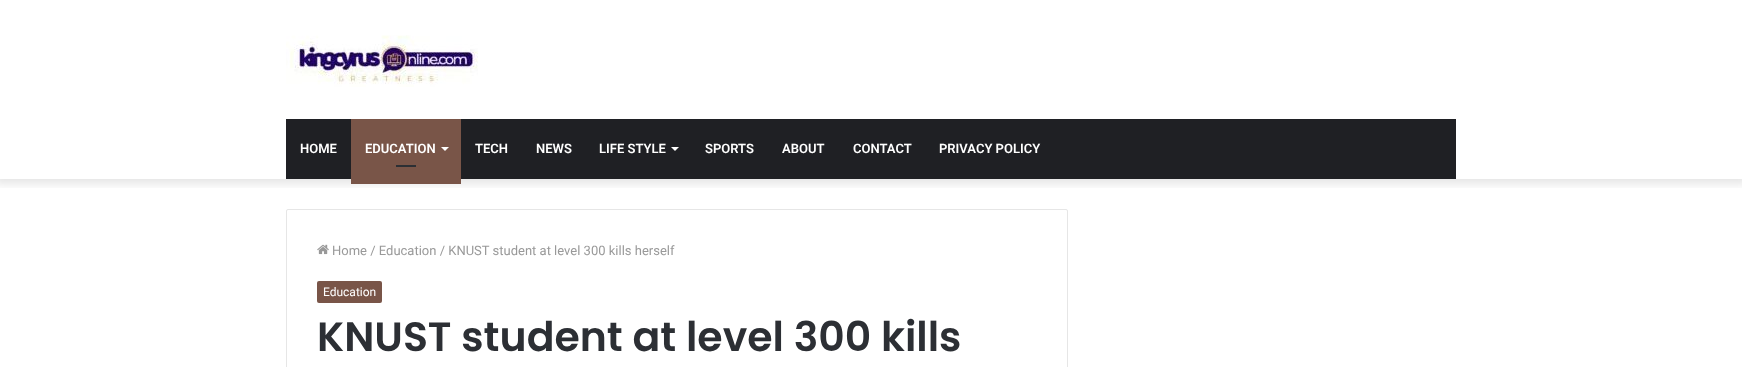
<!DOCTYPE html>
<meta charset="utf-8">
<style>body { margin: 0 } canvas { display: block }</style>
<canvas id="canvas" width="1742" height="367"></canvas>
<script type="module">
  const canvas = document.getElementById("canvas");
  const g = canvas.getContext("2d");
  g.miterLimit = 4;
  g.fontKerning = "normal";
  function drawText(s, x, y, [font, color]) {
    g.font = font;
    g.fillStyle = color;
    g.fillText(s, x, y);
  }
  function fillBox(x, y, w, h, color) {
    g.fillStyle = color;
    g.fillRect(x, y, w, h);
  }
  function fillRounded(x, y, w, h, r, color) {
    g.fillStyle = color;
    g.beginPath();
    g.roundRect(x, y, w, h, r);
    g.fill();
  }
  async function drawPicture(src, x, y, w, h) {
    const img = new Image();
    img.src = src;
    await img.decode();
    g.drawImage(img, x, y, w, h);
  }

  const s1 = ["600 13px Roboto", "#FFFFFF"];
  const s2 = ["13px Roboto", "#999999"];
  const s3 = ["12px Roboto", "#FFFFFF"];
  const s4 = ["600 41px Poppins", "#2C2F34"];

  fillBox(0, 0, 1742, 367, "#FFFFFF");
  g.save();
  g.beginPath();
  g.rect(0, 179, 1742, 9);
  g.clip();
  g.fillStyle = "rgba(0, 0, 0, 0.1)";
  g.filter = "blur(5px)";
  g.beginPath();
  g.rect(-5, -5, 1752, 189);
  g.fill();
  g.filter = "none";
  g.restore();
  await drawPicture("pic1.png", 286, 35, 192, 52);
  fillBox(286, 119, 1170, 60, "#1F2024");
  drawText("HOME", 300, 153, s1);
  fillBox(351, 119, 110, 65, "#795548");
  drawText("EDUCATION", 365, 153, s1);
  g.beginPath();
  g.moveTo(441, 147);
  g.lineTo(449, 147);
  g.lineTo(445, 151);
  g.closePath();
  g.fill();
  fillBox(396, 165, 20, 2, "#2C2F34");
  drawText("TECH", 475, 153, s1);
  drawText("NEWS", 536, 153, s1);
  drawText("LIFE STYLE", 599, 153, s1);
  g.beginPath();
  g.moveTo(671, 147);
  g.lineTo(679, 147);
  g.lineTo(675, 151);
  g.closePath();
  g.fill();
  drawText("SPORTS", 705, 153, s1);
  drawText("ABOUT", 782, 153, s1);
  drawText("CONTACT", 853, 153, s1);
  drawText("PRIVACY POLICY", 939, 153, s1);
  g.beginPath();
  g.roundRect(286.5, 209.5, 781, 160, 1.5);
  g.strokeStyle = "#E6E6E6";
  g.stroke();
  await drawPicture("pic2.png", 317, 244, 12, 11);
  drawText("Home / Education / KNUST student at level 300 kills herself", 332, 255, s2);
  fillRounded(317, 281, 65, 22, 2, "#795548");
  drawText("Education", 323, 296, s3);
  drawText("KNUST student at level 300 kills", 317, 351, s4);
</script>
